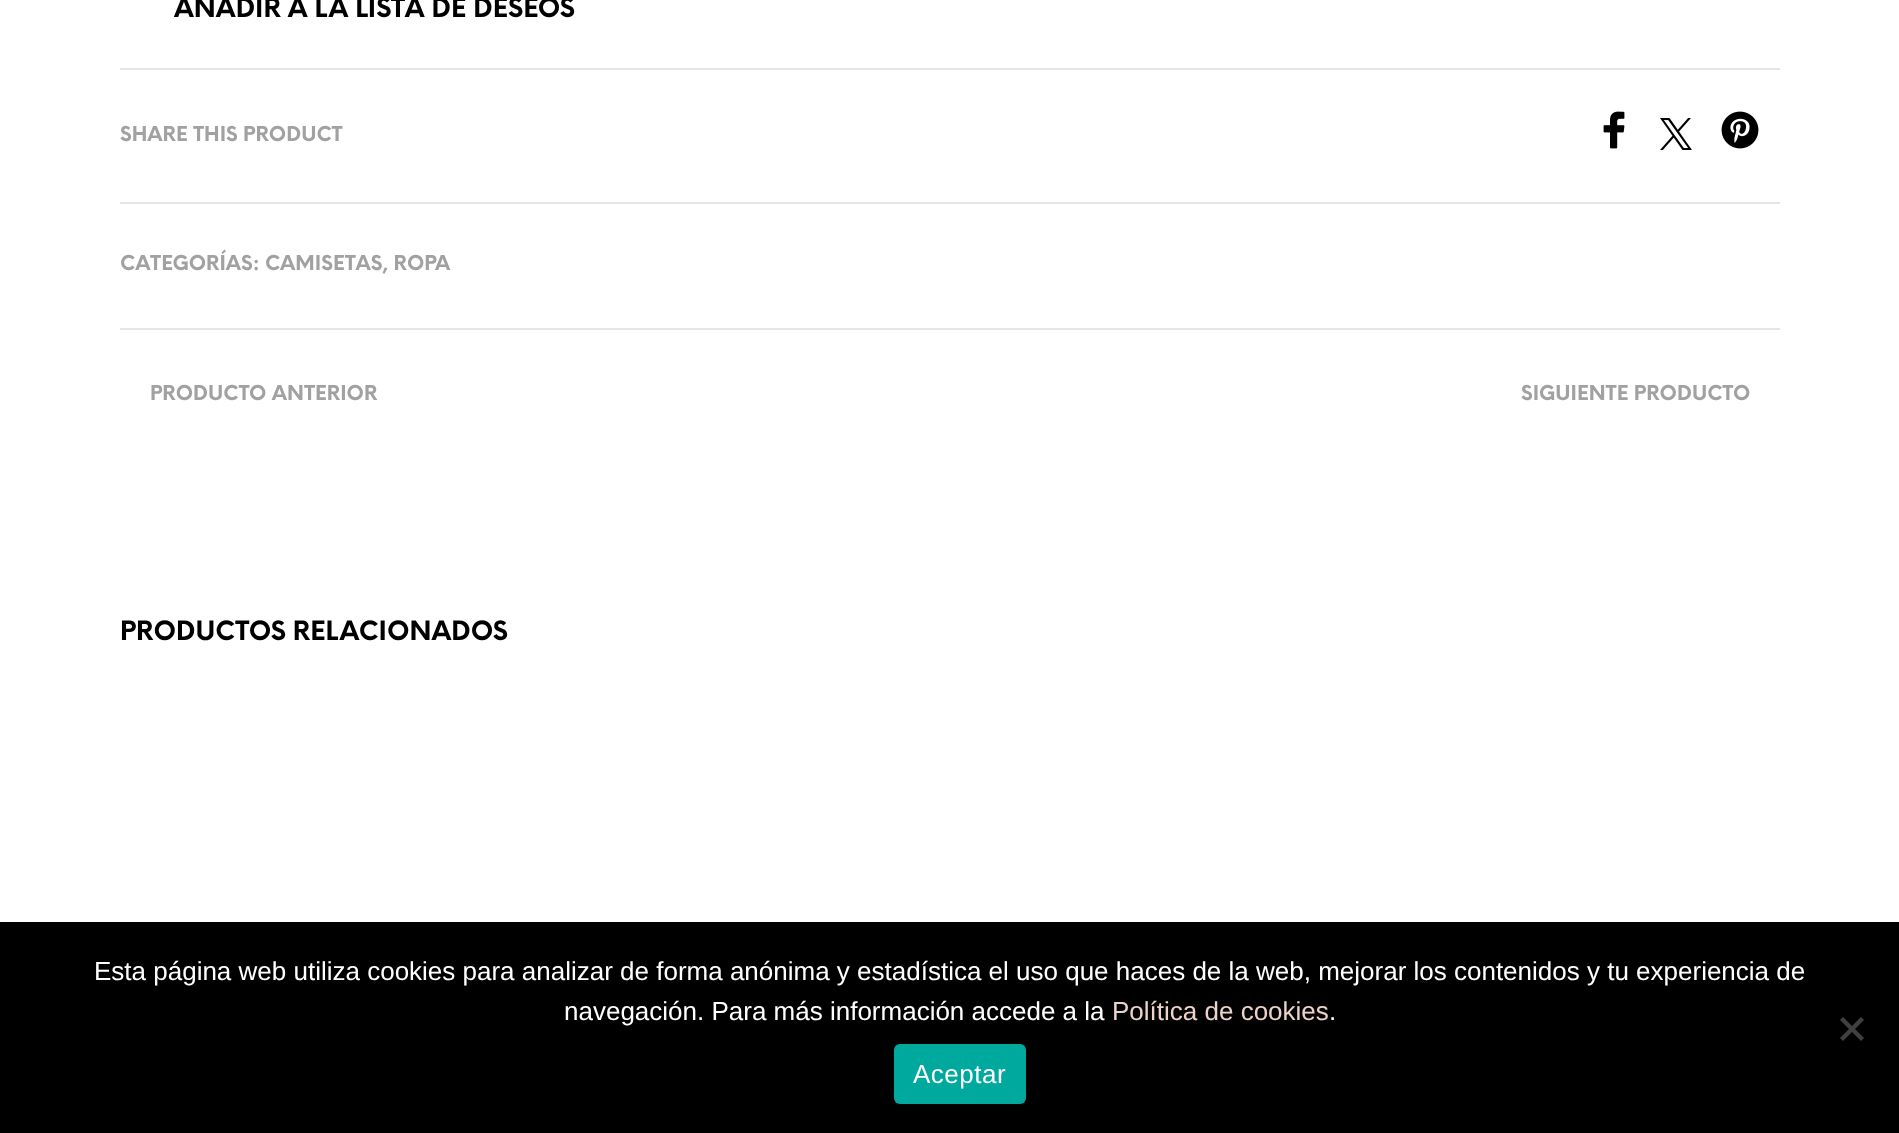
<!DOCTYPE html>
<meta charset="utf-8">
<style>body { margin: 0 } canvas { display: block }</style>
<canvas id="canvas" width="1899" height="1133"></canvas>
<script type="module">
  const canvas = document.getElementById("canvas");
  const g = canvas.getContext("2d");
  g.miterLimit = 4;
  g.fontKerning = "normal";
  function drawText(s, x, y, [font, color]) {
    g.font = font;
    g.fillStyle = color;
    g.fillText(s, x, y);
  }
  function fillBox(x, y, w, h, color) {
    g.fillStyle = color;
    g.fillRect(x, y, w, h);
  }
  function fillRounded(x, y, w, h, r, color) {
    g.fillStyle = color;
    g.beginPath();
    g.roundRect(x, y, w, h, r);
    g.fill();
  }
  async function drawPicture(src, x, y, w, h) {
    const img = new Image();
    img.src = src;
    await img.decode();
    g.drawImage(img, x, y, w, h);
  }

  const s1 = ["bold 26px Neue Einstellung", "#000000"];
  const s2 = ["bold 20px Neue Einstellung", "#A1A1A1"];
  const s3 = ["26px Liberation Sans", "#FFFFFF"];
  const s4 = ["26px Liberation Sans", "#EDD3CA"];

  fillBox(0, 0, 1899, 1133, "#FFFFFF");
  drawText("AÑADIR A LA LISTA DE DESEOS", 174, 17, s1);
  fillBox(120, 68, 1660, 2, "#E5E5E5");
  drawText("SHARE THIS PRODUCT", 120, 141, s2);
  await drawPicture("pic1.png", 1603, 111, 22, 38);
  await drawPicture("pic2.png", 1660, 118, 32, 32);
  await drawPicture("pic3.png", 1721, 111, 38, 38);
  fillBox(120, 202, 1660, 2, "#E5E5E5");
  drawText("CATEGORÍAS: CAMISETAS, ROPA", 120, 270, s2);
  fillBox(120, 328, 1660, 2, "#E5E5E5");
  drawText("PRODUCTO ANTERIOR", 150, 400, s2);
  drawText("SIGUIENTE PRODUCTO", 1521, 400, s2);
  drawText("PRODUCTOS RELACIONADOS", 120, 640, s1);
  fillBox(0, 922, 1899, 211, "#000000");
  drawText("Esta página web utiliza cookies para analizar de forma anónima y estadística el uso que haces de la web, mejorar los contenidos y tu experiencia de", 94, 980, s3);
  drawText("navegación. Para más información accede a la", 564, 1020, s3);
  drawText("Política de cookies", 1112, 1020, s4);
  drawText(".", 1329, 1020, s3);
  g.fillStyle = "#404040";
  g.beginPath();
  g.moveTo(1861, 1017);
  g.lineTo(1864, 1020);
  g.lineTo(1843, 1041);
  g.lineTo(1840, 1038);
  g.closePath();
  g.fill();
  g.beginPath();
  g.moveTo(1840, 1020);
  g.lineTo(1843, 1017);
  g.lineTo(1864, 1038);
  g.lineTo(1861, 1041);
  g.closePath();
  g.fill();
  fillRounded(894, 1044, 132, 60, 6, "#00A99D");
  g.letterSpacing = "0.5px";
  drawText("Aceptar", 913, 1083, s3);
</script>
